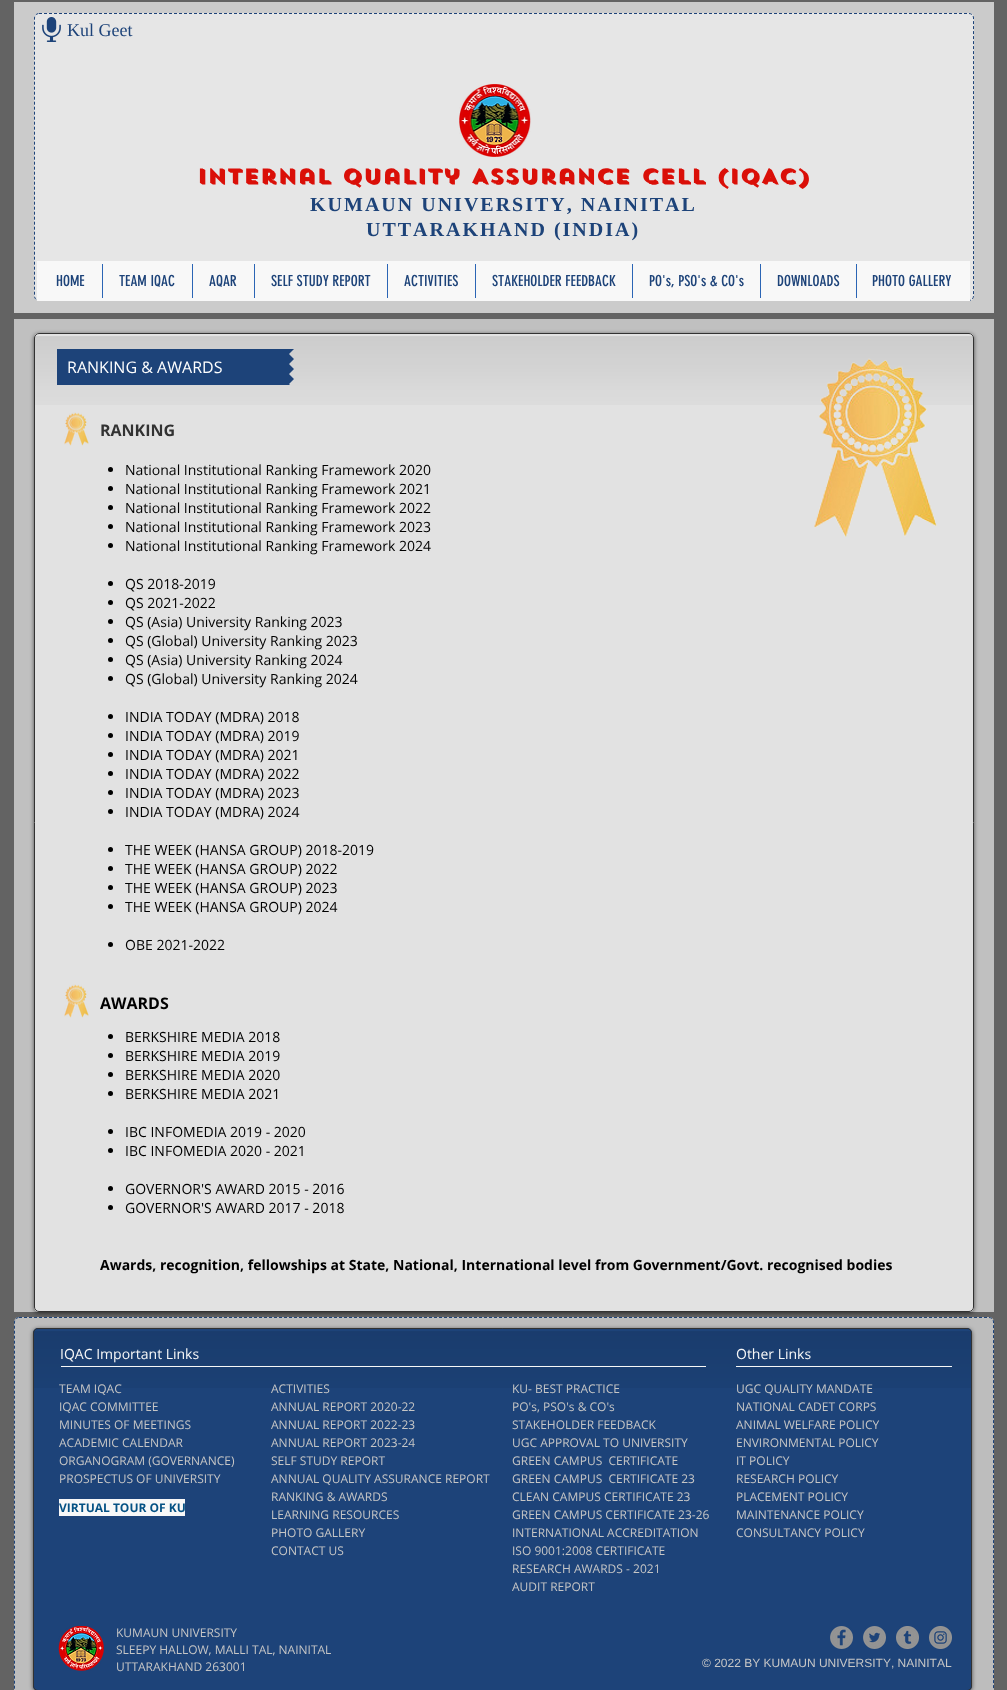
<!DOCTYPE html>
<meta charset="utf-8">
<style>body { margin: 0 } canvas { display: block }</style>
<canvas id="canvas" width="1007" height="1690"></canvas>
<script type="module">
  const canvas = document.getElementById("canvas");
  const g = canvas.getContext("2d");
  g.miterLimit = 4;
  g.fontKerning = "none";
  function drawText(s, x, y, [font, color]) {
    g.font = font;
    g.fillStyle = color;
    g.fillText(s, x, y);
  }
  function fillBox(x, y, w, h, color) {
    g.fillStyle = color;
    g.fillRect(x, y, w, h);
  }
  function fillRounded(x, y, w, h, r, color) {
    g.fillStyle = color;
    g.beginPath();
    g.roundRect(x, y, w, h, r);
    g.fill();
  }
  async function drawPicture(src, x, y, w, h) {
    const img = new Image();
    img.src = src;
    await img.decode();
    g.drawImage(img, x, y, w, h);
  }

  const s1 = ["18px Liberation Serif", "#1D4379"];
  const s2 = ["bold 20px 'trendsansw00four'", "#DA0F08"];
  const s3 = ["bold 20px Liberation Serif", "#1D4379"];
  const s4 = ["15px 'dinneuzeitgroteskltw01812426'", "#1D4379"];
  const s5 = ["16px Open Sans", "#FFFFFF"];
  const s6 = ["bold 16px Open Sans", "#323232"];
  const s7 = ["14px Open Sans", "#000000"];
  const s8 = ["bold 16px Open Sans", "#000000"];
  const s9 = ["bold 14px Open Sans", "#000000"];
  const s10 = ["14px Open Sans", "#F8F8F8"];
  const s11 = ["12px Open Sans", "#C6C6C6"];
  const s12 = ["bold 12px Open Sans", "#045184"];
  const s13 = ["12px Liberation Sans", "#C6C6C6"];

  fillBox(0, 0, 1007, 1690, "#636363");
  fillBox(14, 2, 980, 311, "#CBCBCB");
  fillRounded(34, 13, 940, 288, 5, "#E6E6E6");
  g.beginPath();
  g.moveTo(39, 13.5);
  g.lineTo(969, 13.5);
  g.bezierCurveTo(971.5, 13.5, 973.5, 15.5, 973.5, 18);
  g.lineTo(973.5, 296);
  g.bezierCurveTo(973.5, 298.5, 971.5, 300.5, 969, 300.5);
  g.lineTo(39, 300.5);
  g.bezierCurveTo(36.5, 300.5, 34.5, 298.5, 34.5, 296);
  g.lineTo(34.5, 18);
  g.bezierCurveTo(34.5, 15.5, 36.5, 13.5, 39, 13.5);
  g.closePath();
  g.strokeStyle = "#1D4379";
  g.setLineDash([3, 2]);
  g.stroke();
  await drawPicture("pic1.png", 42, 17, 19, 25);
  drawText("Kul Geet", 67, 36, s1);
  await drawPicture("pic2.png", 459, 84, 72, 73);
  g.letterSpacing = "2px";
  drawText("Internal Quality Assurance Cell (IQAC)", 197, 183, s2);
  drawText("KUMAUN UNIVERSITY, NAINITAL", 310, 211, s3);
  drawText("UTTARAKHAND (INDIA)", 366, 236, s3);
  fillBox(37, 261, 933, 40, "#F8F8F8");
  g.letterSpacing = "0px";
  drawText("HOME", 56, 286, s4);
  fillBox(102, 264, 1, 34, "#2B65B5");
  drawText("TEAM IQAC", 119, 286, s4);
  fillBox(192, 264, 1, 34, "#2B65B5");
  drawText("AQAR", 209, 286, s4);
  fillBox(254, 264, 1, 34, "#2B65B5");
  drawText("SELF STUDY REPORT", 271, 286, s4);
  fillBox(387, 264, 1, 34, "#2B65B5");
  drawText("ACTIVITIES", 404, 286, s4);
  fillBox(475, 264, 1, 34, "#2B65B5");
  drawText("STAKEHOLDER FEEDBACK", 492, 286, s4);
  fillBox(632, 264, 1, 34, "#2B65B5");
  drawText("PO's, PSO's & CO's", 649, 286, s4);
  fillBox(760, 264, 1, 34, "#2B65B5");
  drawText("DOWNLOADS", 777, 286, s4);
  fillBox(856, 264, 1, 34, "#2B65B5");
  drawText("PHOTO GALLERY", 872, 286, s4);
  fillBox(14, 319, 980, 993, "#C0C0C0");
  g.save();
  g.beginPath();
  g.moveTo(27, 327);
  g.lineTo(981, 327);
  g.lineTo(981, 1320);
  g.lineTo(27, 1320);
  g.closePath();
  g.moveTo(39, 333);
  g.lineTo(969, 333);
  g.bezierCurveTo(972, 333, 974, 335, 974, 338);
  g.lineTo(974, 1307);
  g.bezierCurveTo(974, 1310, 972, 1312, 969, 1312);
  g.lineTo(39, 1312);
  g.bezierCurveTo(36, 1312, 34, 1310, 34, 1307);
  g.lineTo(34, 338);
  g.bezierCurveTo(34, 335, 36, 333, 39, 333);
  g.closePath();
  g.clip("evenodd");
  g.fillStyle = "rgba(0, 0, 0, 0.6)";
  g.filter = "blur(2px)";
  g.beginPath();
  g.roundRect(34, 334, 940, 979, 5);
  g.fill();
  g.filter = "none";
  g.restore();
  fillRounded(34, 333, 940, 979, 5, "rgba(248, 248, 248, 0.6)");
  await drawPicture("pic3.png", 34, 336, 940, 69);
  g.beginPath();
  g.roundRect(34.5, 333.5, 939, 978, 4.5);
  g.strokeStyle = "#323232";
  g.setLineDash([]);
  g.stroke();
  fillBox(57, 349, 232, 36, "#1D4379");
  drawText("RANKING & AWARDS", 67, 373, s5);
  g.save();
  g.beginPath();
  g.rect(289, 349, 5, 36);
  g.clip();
  g.fillStyle = "#1D4379";
  g.beginPath();
  g.moveTo(289, 354);
  g.lineTo(289, 344);
  g.lineTo(294, 349);
  g.closePath();
  g.fill();
  g.restore();
  g.fillStyle = "#1D4379";
  g.beginPath();
  g.moveTo(289, 364);
  g.lineTo(289, 354);
  g.lineTo(294, 359);
  g.closePath();
  g.moveTo(289, 374);
  g.lineTo(289, 364);
  g.lineTo(294, 369);
  g.closePath();
  g.moveTo(289, 384);
  g.lineTo(289, 374);
  g.lineTo(294, 379);
  g.closePath();
  g.fill();
  g.save();
  g.beginPath();
  g.rect(289, 349, 5, 36);
  g.clip();
  g.beginPath();
  g.moveTo(289, 394);
  g.lineTo(289, 384);
  g.lineTo(294, 389);
  g.closePath();
  g.fill();
  g.restore();
  await drawPicture("pic4.png", 814, 358, 123, 179);
  await drawPicture("pic5.png", 64, 412, 25, 34);
  drawText("RANKING", 100, 436, s6);
  g.fillStyle = "#000000";
  g.beginPath();
  g.arc(110.5, 469.5, 2.5, 0, Math.PI * 2);
  g.fill();
  drawText("National Institutional Ranking Framework 2020", 125, 475, s7);
  g.beginPath();
  g.arc(110.5, 488.5, 2.5, 0, Math.PI * 2);
  g.fill();
  drawText("National Institutional Ranking Framework 2021", 125, 494, s7);
  g.beginPath();
  g.arc(110.5, 507.5, 2.5, 0, Math.PI * 2);
  g.fill();
  drawText("National Institutional Ranking Framework 2022", 125, 513, s7);
  g.beginPath();
  g.arc(110.5, 526.5, 2.5, 0, Math.PI * 2);
  g.fill();
  drawText("National Institutional Ranking Framework 2023", 125, 532, s7);
  g.beginPath();
  g.arc(110.5, 545.5, 2.5, 0, Math.PI * 2);
  g.fill();
  drawText("National Institutional Ranking Framework 2024", 125, 551, s7);
  g.beginPath();
  g.arc(110.5, 583.5, 2.5, 0, Math.PI * 2);
  g.fill();
  drawText("QS 2018-2019", 125, 589, s7);
  g.beginPath();
  g.arc(110.5, 602.5, 2.5, 0, Math.PI * 2);
  g.fill();
  drawText("QS 2021-2022", 125, 608, s7);
  g.beginPath();
  g.arc(110.5, 621.5, 2.5, 0, Math.PI * 2);
  g.fill();
  drawText("QS (Asia) University Ranking 2023", 125, 627, s7);
  g.beginPath();
  g.arc(110.5, 640.5, 2.5, 0, Math.PI * 2);
  g.fill();
  drawText("QS (Global) University Ranking 2023", 125, 646, s7);
  g.beginPath();
  g.arc(110.5, 659.5, 2.5, 0, Math.PI * 2);
  g.fill();
  drawText("QS (Asia) University Ranking 2024", 125, 665, s7);
  g.beginPath();
  g.arc(110.5, 678.5, 2.5, 0, Math.PI * 2);
  g.fill();
  drawText("QS (Global) University Ranking 2024", 125, 684, s7);
  g.beginPath();
  g.arc(110.5, 716.5, 2.5, 0, Math.PI * 2);
  g.fill();
  drawText("INDIA TODAY (MDRA) 2018", 125, 722, s7);
  g.beginPath();
  g.arc(110.5, 735.5, 2.5, 0, Math.PI * 2);
  g.fill();
  drawText("INDIA TODAY (MDRA) 2019", 125, 741, s7);
  g.beginPath();
  g.arc(110.5, 754.5, 2.5, 0, Math.PI * 2);
  g.fill();
  drawText("INDIA TODAY (MDRA) 2021", 125, 760, s7);
  g.beginPath();
  g.arc(110.5, 773.5, 2.5, 0, Math.PI * 2);
  g.fill();
  drawText("INDIA TODAY (MDRA) 2022", 125, 779, s7);
  g.beginPath();
  g.arc(110.5, 792.5, 2.5, 0, Math.PI * 2);
  g.fill();
  drawText("INDIA TODAY (MDRA) 2023", 125, 798, s7);
  g.beginPath();
  g.arc(110.5, 811.5, 2.5, 0, Math.PI * 2);
  g.fill();
  drawText("INDIA TODAY (MDRA) 2024", 125, 817, s7);
  g.beginPath();
  g.arc(110.5, 849.5, 2.5, 0, Math.PI * 2);
  g.fill();
  drawText("THE WEEK (HANSA GROUP) 2018-2019", 125, 855, s7);
  g.beginPath();
  g.arc(110.5, 868.5, 2.5, 0, Math.PI * 2);
  g.fill();
  drawText("THE WEEK (HANSA GROUP) 2022", 125, 874, s7);
  g.beginPath();
  g.arc(110.5, 887.5, 2.5, 0, Math.PI * 2);
  g.fill();
  drawText("THE WEEK (HANSA GROUP) 2023", 125, 893, s7);
  g.beginPath();
  g.arc(110.5, 906.5, 2.5, 0, Math.PI * 2);
  g.fill();
  drawText("THE WEEK (HANSA GROUP) 2024", 125, 912, s7);
  g.beginPath();
  g.arc(110.5, 944.5, 2.5, 0, Math.PI * 2);
  g.fill();
  drawText("OBE 2021-2022", 125, 950, s7);
  await drawPicture("pic5.png", 64, 984, 25, 34);
  drawText("AWARDS", 100, 1009, s8);
  g.beginPath();
  g.arc(110.5, 1036.5, 2.5, 0, Math.PI * 2);
  g.fill();
  drawText("BERKSHIRE MEDIA 2018", 125, 1042, s7);
  g.beginPath();
  g.arc(110.5, 1055.5, 2.5, 0, Math.PI * 2);
  g.fill();
  drawText("BERKSHIRE MEDIA 2019", 125, 1061, s7);
  g.beginPath();
  g.arc(110.5, 1074.5, 2.5, 0, Math.PI * 2);
  g.fill();
  drawText("BERKSHIRE MEDIA 2020", 125, 1080, s7);
  g.beginPath();
  g.arc(110.5, 1093.5, 2.5, 0, Math.PI * 2);
  g.fill();
  drawText("BERKSHIRE MEDIA 2021", 125, 1099, s7);
  g.beginPath();
  g.arc(110.5, 1131.5, 2.5, 0, Math.PI * 2);
  g.fill();
  drawText("IBC INFOMEDIA 2019 - 2020", 125, 1137, s7);
  g.beginPath();
  g.arc(110.5, 1150.5, 2.5, 0, Math.PI * 2);
  g.fill();
  drawText("IBC INFOMEDIA 2020 - 2021", 125, 1156, s7);
  g.beginPath();
  g.arc(110.5, 1188.5, 2.5, 0, Math.PI * 2);
  g.fill();
  drawText("GOVERNOR'S AWARD 2015 - 2016", 125, 1194, s7);
  g.beginPath();
  g.arc(110.5, 1207.5, 2.5, 0, Math.PI * 2);
  g.fill();
  drawText("GOVERNOR'S AWARD 2017 - 2018", 125, 1213, s7);
  drawText("Awards, recognition, fellowships at State, National, International level from Government/Govt. recognised bodies", 100, 1270, s9);
  fillRounded(14, 1317, 980, 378, 5, "#BDBDBD");
  g.beginPath();
  g.moveTo(19, 1317.5);
  g.lineTo(989, 1317.5);
  g.bezierCurveTo(991.5, 1317.5, 993.5, 1319.5, 993.5, 1322);
  g.lineTo(993.5, 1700);
  g.bezierCurveTo(993.5, 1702.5, 991.5, 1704.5, 989, 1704.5);
  g.lineTo(19, 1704.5);
  g.bezierCurveTo(16.5, 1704.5, 14.5, 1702.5, 14.5, 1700);
  g.lineTo(14.5, 1322);
  g.bezierCurveTo(14.5, 1319.5, 16.5, 1317.5, 19, 1317.5);
  g.closePath();
  g.strokeStyle = "#1D4379";
  g.setLineDash([3, 2]);
  g.stroke();
  g.fillStyle = "rgba(0, 0, 0, 0.6)";
  g.filter = "blur(2px)";
  g.beginPath();
  g.roundRect(33, 1329, 939, 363, 5);
  g.fill();
  g.filter = "none";
  fillRounded(33, 1328, 939, 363, 5, "#1D4379");
  await drawPicture("pic6.png", 33, 1331, 939, 57);
  g.beginPath();
  g.roundRect(33.5, 1328.5, 938, 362, 4.5);
  g.strokeStyle = "#323232";
  g.setLineDash([]);
  g.stroke();
  drawText("IQAC Important Links", 60, 1359, s10);
  drawText("Other Links", 736, 1359, s10);
  fillBox(61, 1366, 645, 1, "#F8F8F8");
  fillBox(736, 1366, 216, 1, "#F8F8F8");
  drawText("TEAM IQAC", 59, 1393, s11);
  drawText("IQAC COMMITTEE", 59, 1411, s11);
  drawText("MINUTES OF MEETINGS", 59, 1429, s11);
  drawText("ACADEMIC CALENDAR", 59, 1447, s11);
  drawText("ORGANOGRAM (GOVERNANCE)", 59, 1465, s11);
  drawText("PROSPECTUS OF UNIVERSITY", 59, 1483, s11);
  drawText("ACTIVITIES", 271, 1393, s11);
  drawText("ANNUAL REPORT 2020-22", 271, 1411, s11);
  drawText("ANNUAL REPORT 2022-23", 271, 1429, s11);
  drawText("ANNUAL REPORT 2023-24", 271, 1447, s11);
  drawText("SELF STUDY REPORT", 271, 1465, s11);
  drawText("ANNUAL QUALITY ASSURANCE REPORT", 271, 1483, s11);
  drawText("RANKING & AWARDS", 271, 1501, s11);
  drawText("LEARNING RESOURCES", 271, 1519, s11);
  drawText("PHOTO GALLERY", 271, 1537, s11);
  drawText("CONTACT US", 271, 1555, s11);
  drawText("KU- BEST PRACTICE", 512, 1393, s11);
  drawText("PO's, PSO's & CO's", 512, 1411, s11);
  drawText("STAKEHOLDER FEEDBACK", 512, 1429, s11);
  drawText("UGC APPROVAL TO UNIVERSITY", 512, 1447, s11);
  drawText("GREEN CAMPUS  CERTIFICATE", 512, 1465, s11);
  drawText("GREEN CAMPUS  CERTIFICATE 23", 512, 1483, s11);
  drawText("CLEAN CAMPUS CERTIFICATE 23", 512, 1501, s11);
  drawText("GREEN CAMPUS CERTIFICATE 23-26", 512, 1519, s11);
  drawText("INTERNATIONAL ACCREDITATION", 512, 1537, s11);
  drawText("ISO 9001:2008 CERTIFICATE", 512, 1555, s11);
  drawText("RESEARCH AWARDS - 2021", 512, 1573, s11);
  drawText("AUDIT REPORT", 512, 1591, s11);
  drawText("UGC QUALITY MANDATE", 736, 1393, s11);
  drawText("NATIONAL CADET CORPS", 736, 1411, s11);
  drawText("ANIMAL WELFARE POLICY", 736, 1429, s11);
  drawText("ENVIRONMENTAL POLICY", 736, 1447, s11);
  drawText("IT POLICY", 736, 1465, s11);
  drawText("RESEARCH POLICY", 736, 1483, s11);
  drawText("PLACEMENT POLICY", 736, 1501, s11);
  drawText("MAINTENANCE POLICY", 736, 1519, s11);
  drawText("CONSULTANCY POLICY", 736, 1537, s11);
  fillBox(59, 1499, 126, 17, "#F8F8F8");
  drawText("VIRTUAL TOUR OF KU", 59, 1512, s12);
  await drawPicture("pic7.png", 58, 1626, 46, 45);
  drawText("KUMAUN UNIVERSITY", 116, 1637, s11);
  drawText("SLEEPY HALLOW, MALLI TAL, NAINITAL", 116, 1654, s11);
  drawText("UTTARAKHAND 263001", 116, 1671, s11);
  await drawPicture("pic8.png", 830, 1626, 23, 23);
  await drawPicture("pic9.png", 863, 1626, 23, 23);
  await drawPicture("pic10.png", 896, 1626, 23, 23);
  await drawPicture("pic11.png", 929, 1626, 23, 23);
  drawText("© 2022 BY KUMAUN UNIVERSITY, NAINITAL", 702, 1667, s13);
</script>
